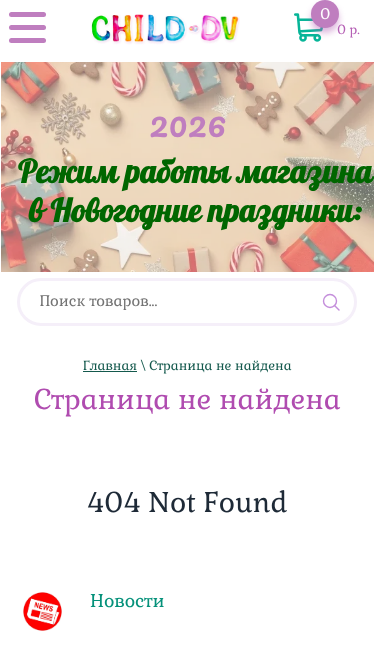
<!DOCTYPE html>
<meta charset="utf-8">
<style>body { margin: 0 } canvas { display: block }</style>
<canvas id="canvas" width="374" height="653"></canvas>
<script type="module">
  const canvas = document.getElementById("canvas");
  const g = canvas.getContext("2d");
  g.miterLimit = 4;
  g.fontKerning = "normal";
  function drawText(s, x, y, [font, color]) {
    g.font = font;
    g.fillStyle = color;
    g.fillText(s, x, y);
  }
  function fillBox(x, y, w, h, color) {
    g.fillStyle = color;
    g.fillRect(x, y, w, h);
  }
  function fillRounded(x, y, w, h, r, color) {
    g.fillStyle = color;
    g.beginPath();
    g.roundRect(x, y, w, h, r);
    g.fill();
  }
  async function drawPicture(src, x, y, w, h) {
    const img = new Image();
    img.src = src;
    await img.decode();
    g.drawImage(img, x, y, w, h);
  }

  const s1 = ["15px Gabriela", "#FFFFFF"];
  const s2 = ["13px Gabriela", "#B560B5"];
  const s3 = ["35px Pacifico", "#BF7EBF"];
  const s4 = ["bold 32px Lobster", "#006600"];
  const s5 = ["15px Gabriela", "#747474"];
  const s6 = ["13px Gabriela", "#14594D"];
  const s7 = ["28px Gabriela", "#B04CB0"];
  const s8 = ["28px Gabriela", "#1E2A37"];
  const s9 = ["18px Gabriela", "#05917A"];

  fillBox(0, 0, 374, 653, "#FFFFFF");
  fillRounded(9, 12, 37, 5, 2.5, "#BF7EBF");
  fillRounded(9, 25, 37, 5, 2.5, "#BF7EBF");
  fillRounded(9, 38, 37, 5, 2.5, "#BF7EBF");
  await drawPicture("pic1.png", 91, 14, 149, 31);
  await drawPicture("pic2.png", 294, 13, 30, 29);
  g.fillStyle = "rgba(181, 96, 181, 0.46)";
  g.filter = "blur(3px)";
  g.beginPath();
  g.roundRect(311, 5, 28, 28, 14);
  g.fill();
  g.filter = "none";
  g.fillStyle = "#BF7EBF";
  g.beginPath();
  g.arc(325, 14, 14, 0, Math.PI * 2);
  g.fill();
  drawText("0", 320, 19, s1);
  drawText("0 р.", 337, 34, s2);
  await drawPicture("pic3.png", 1, 62, 373, 210);
  drawText("2026", 149, 137, s3);
  drawText("Режим работы магазина", 18, 183, s4);
  drawText("в Новогодние праздники:", 29, 222, s4);
  g.beginPath();
  g.roundRect(18.5, 279.5, 337, 45, 22.5);
  g.strokeStyle = "#F5EFF9";
  g.lineWidth = 3;
  g.stroke();
  drawText("Поиск товаров...", 40, 306, s5);
  g.beginPath();
  g.arc(330, 301, 6.5, 0, Math.PI * 2);
  g.strokeStyle = "#C48EDB";
  g.lineWidth = 1.4;
  g.stroke();
  g.beginPath();
  g.moveTo(339, 310);
  g.lineTo(334.5, 305.5);
  g.lineCap = "round";
  g.stroke();
  fillBox(83, 371, 54, 1, "#14594D");
  drawText("Главная \\ Страница не найдена", 83, 370, s6);
  drawText("Страница не найдена", 34, 409, s7);
  drawText("404 Not Found", 87, 512, s8);
  await drawPicture("pic4.png", 23, 592, 39, 39);
  drawText("Новости", 90, 607, s9);
</script>
